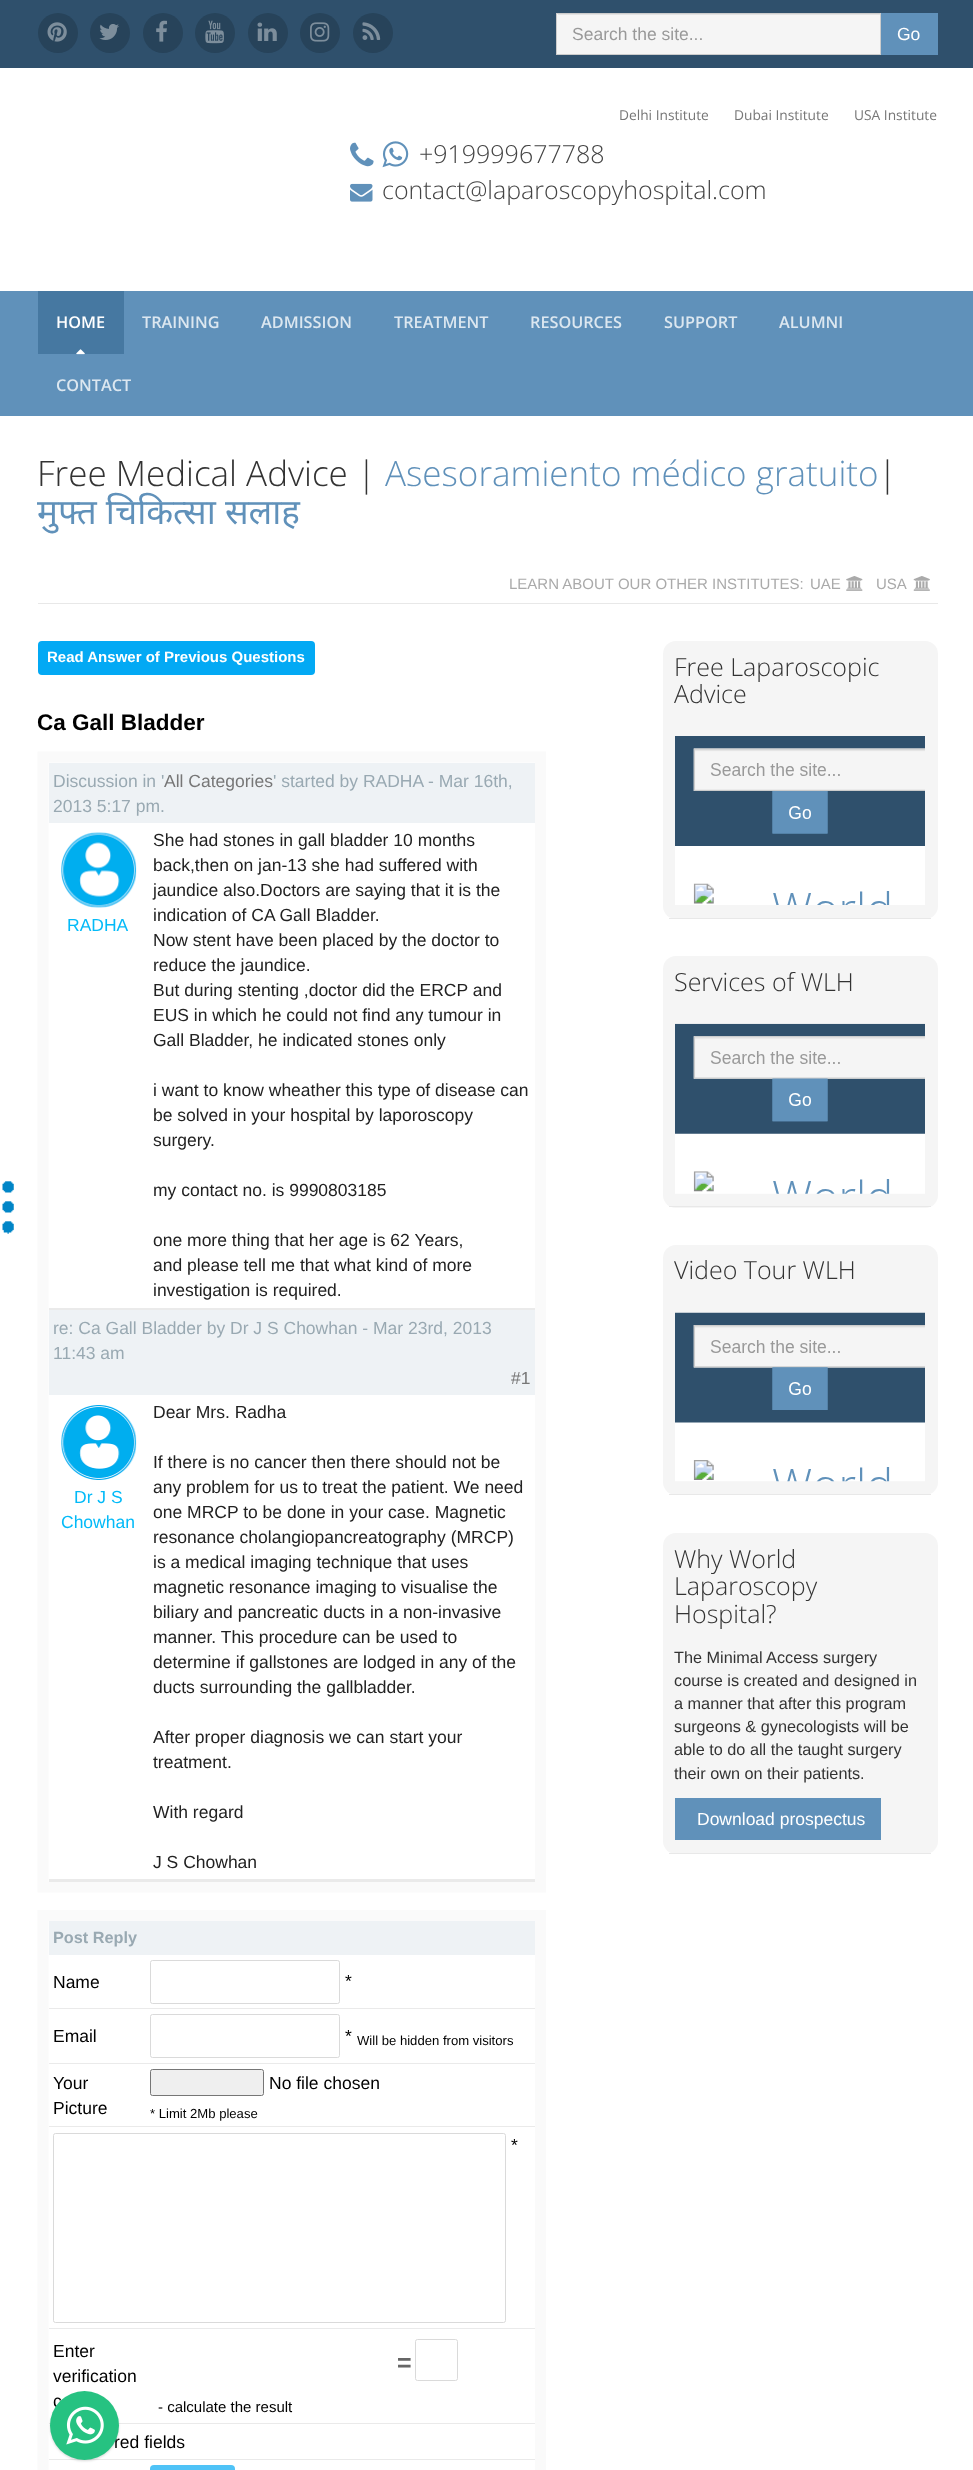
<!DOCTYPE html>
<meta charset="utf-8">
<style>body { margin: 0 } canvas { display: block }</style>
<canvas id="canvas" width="973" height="2470"></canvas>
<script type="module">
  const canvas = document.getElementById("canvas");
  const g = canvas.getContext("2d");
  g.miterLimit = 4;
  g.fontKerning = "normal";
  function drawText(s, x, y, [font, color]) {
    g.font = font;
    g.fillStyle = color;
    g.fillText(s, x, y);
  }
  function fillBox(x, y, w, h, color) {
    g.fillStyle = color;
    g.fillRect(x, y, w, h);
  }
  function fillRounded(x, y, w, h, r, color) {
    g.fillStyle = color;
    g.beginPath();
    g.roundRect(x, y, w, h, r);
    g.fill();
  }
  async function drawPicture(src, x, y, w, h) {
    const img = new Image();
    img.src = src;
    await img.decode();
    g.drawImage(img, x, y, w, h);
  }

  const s1 = ["17.5px Liberation Sans", "#999999"];
  const s2 = ["17.5px Liberation Sans", "#FFFFFF"];
  const s3 = ["13.75px Open Sans", "#777777"];
  const s4 = ["300 25px Open Sans", "#444444"];
  const s5 = ["600 16.25px Open Sans", "#FFFFFF"];
  const s6 = ["600 16.25px Open Sans", "#DCE7F0"];
  const s7 = ["300 35px Open Sans", "#333333"];
  const s8 = ["300 35px Open Sans", "#6091BA"];
  const s9 = ["35px Noto Sans", "#6091BA"];
  const s10 = ["15px Liberation Sans", "#AAAAAA"];
  const s11 = ["bold 15px Liberation Sans", "#FFFFFF"];
  const s12 = ["bold 22.5px Liberation Sans", "#000000"];
  const s13 = ["17.5px Liberation Sans", "#99A9B2"];
  const s14 = ["17.5px Liberation Sans", "#777777"];
  const s15 = ["17.5px Liberation Sans", "#03BAF8"];
  const s16 = ["17.5px Liberation Sans", "#222222"];
  const s17 = ["bold 16.25px Liberation Sans", "#99A9B2"];
  const s18 = ["17.5px Liberation Sans", "#000000"];
  const s19 = ["13.1px Liberation Sans", "#000000"];
  const s20 = ["bold 25px Liberation Sans", "#666666"];
  const s21 = ["15px Liberation Sans", "#000000"];
  const s22 = ["300 25px Open Sans", "#333333"];
  const s23 = ["16.25px Liberation Sans", "#333333"];

  fillBox(0, 0, 973, 2470, "#FFFFFF");
  await drawPicture("pic1.png", 2, 1181, 12, 53);
  fillBox(0, 0, 973, 68, "#2F506C");
  g.fillStyle = "#27435A";
  g.beginPath();
  g.arc(58, 33, 20, 0, Math.PI * 2);
  g.fill();
  await drawPicture("pic2.png", 47, 22, 20, 20);
  g.beginPath();
  g.arc(110, 33, 20, 0, Math.PI * 2);
  g.fill();
  await drawPicture("pic3.png", 99, 24, 20, 16);
  g.beginPath();
  g.arc(163, 33, 20, 0, Math.PI * 2);
  g.fill();
  await drawPicture("pic4.png", 156, 20, 11, 22);
  g.beginPath();
  g.arc(215, 33, 20, 0, Math.PI * 2);
  g.fill();
  await drawPicture("pic5.png", 205, 20, 19, 24);
  g.beginPath();
  g.arc(268, 33, 20, 0, Math.PI * 2);
  g.fill();
  await drawPicture("pic6.png", 257, 22, 20, 19);
  g.beginPath();
  g.arc(320, 33, 20, 0, Math.PI * 2);
  g.fill();
  await drawPicture("pic7.png", 310, 22, 20, 20);
  g.beginPath();
  g.arc(373, 33, 20, 0, Math.PI * 2);
  g.fill();
  await drawPicture("pic8.png", 362, 22, 19, 18);
  fillBox(557, 14, 323, 40, "#F5F5F5");
  fillBox(558, 14, 322, 1, "#E3E3E3");
  g.strokeStyle = "#CCCCCC";
  g.strokeRect(556.5, 13.5, 324, 41);
  drawText("Search the site...", 572, 40, s1);
  fillBox(881, 13, 57, 42, "#6091BA");
  drawText("Go", 897, 40, s2);
  drawText("Delhi Institute", 619, 120, s3);
  drawText("Dubai Institute", 734, 120, s3);
  drawText("USA Institute", 854, 120, s3);
  await drawPicture("pic9.png", 350, 142, 24, 25);
  await drawPicture("pic10.png", 382, 141, 27, 27);
  drawText("+919999677788", 419, 163, s4);
  await drawPicture("pic11.png", 350, 183, 23, 19);
  drawText("contact@laparoscopyhospital.com", 382, 199, s4);
  fillBox(0, 291, 973, 125, "#6091BA");
  fillBox(38, 291, 86, 63, "#4678A1");
  drawText("HOME", 56, 328, s5);
  await drawPicture("pic12.png", 76, 349, 9, 6);
  drawText("TRAINING", 142, 328, s6);
  drawText("ADMISSION", 261, 328, s6);
  drawText("TREATMENT", 394, 328, s6);
  drawText("RESOURCES", 530, 328, s6);
  drawText("SUPPORT", 664, 328, s6);
  drawText("ALUMNI", 779, 328, s6);
  drawText("CONTACT", 56, 391, s6);
  fillBox(38, 603, 900, 1, "#E8E8E8");
  drawText("Free Medical Advice |", 37, 486, s7);
  drawText("Asesoramiento médico gratuito", 385, 486, s8);
  drawText("|", 878, 486, s7);
  drawText("मुफ्त चिकित्सा सलाह", 37, 524, s9);
  drawText("LEARN ABOUT OUR OTHER INSTITUTES:", 509, 589, s10);
  drawText("UAE", 810, 589, s10);
  await drawPicture("pic13.png", 846, 576, 17, 15);
  drawText("USA", 876, 589, s10);
  await drawPicture("pic14.png", 913, 576, 17, 15);
  fillRounded(38, 641, 277, 34, 4, "#03A9F4");
  drawText("Read Answer of Previous Questions", 47, 662, s11);
  drawText("Ca Gall Bladder", 37, 730, s12);
  g.beginPath();
  g.moveTo(43, 757);
  g.lineTo(540.5, 757);
  g.lineTo(540.5, 1887);
  g.lineTo(43, 1887);
  g.closePath();
  g.strokeStyle = "#FAFAFA";
  g.lineWidth = 11.2;
  g.stroke();
  fillBox(49, 763, 486, 60, "#EEF2F5");
  drawText("Discussion in '", 53, 787, s13);
  drawText("All Categories", 164, 787, s14);
  drawText("' started by RADHA - Mar 16th,", 273, 787, s13);
  drawText("2013 5:17 pm.", 53, 812, s13);
  fillBox(49, 1308, 486, 2, "#EAEAEA");
  await drawPicture("pic15.png", 61, 832, 76, 76);
  drawText("RADHA", 67, 931, s15);
  drawText("She had stones in gall bladder 10 months", 153, 846, s16);
  drawText("back,then on jan-13 she had suffered with", 153, 871, s16);
  drawText("jaundice also.Doctors are saying that it is the", 153, 896, s16);
  drawText("indication of CA Gall Bladder.", 153, 921, s16);
  drawText("Now stent have been placed by the doctor to", 153, 946, s16);
  drawText("reduce the jaundice.", 153, 971, s16);
  drawText("But during stenting ,doctor did the ERCP and", 153, 996, s16);
  drawText("EUS in which he could not find any tumour in", 153, 1021, s16);
  drawText("Gall Bladder, he indicated stones only", 153, 1046, s16);
  drawText("i want to know wheather this type of disease can", 153, 1096, s16);
  drawText("be solved in your hospital by laporoscopy", 153, 1121, s16);
  drawText("surgery.", 153, 1146, s16);
  drawText("my contact no. is 9990803185", 153, 1196, s16);
  drawText("one more thing that her age is 62 Years,", 153, 1246, s16);
  drawText("and please tell me that what kind of more", 153, 1271, s16);
  drawText("investigation is required.", 153, 1296, s16);
  fillBox(49, 1310, 486, 85, "#EEF2F5");
  drawText("re: Ca Gall Bladder by Dr J S Chowhan - Mar 23rd, 2013", 53, 1334, s13);
  drawText("11:43 am", 53, 1359, s13);
  drawText("#1", 511, 1384, s14);
  fillBox(49, 1879, 486, 3, "#EAEAEA");
  await drawPicture("pic16.png", 61, 1405, 76, 75);
  drawText("Dr J S", 74, 1503, s15);
  drawText("Chowhan", 61, 1528, s15);
  drawText("Dear Mrs. Radha", 153, 1418, s16);
  drawText("If there is no cancer then there should not be", 153, 1468, s16);
  drawText("any problem for us to treat the patient. We need", 153, 1493, s16);
  drawText("one MRCP to be done in your case. Magnetic", 153, 1518, s16);
  drawText("resonance cholangiopancreatography (MRCP)", 153, 1543, s16);
  drawText("is a medical imaging technique that uses", 153, 1568, s16);
  drawText("magnetic resonance imaging to visualise the", 153, 1593, s16);
  drawText("biliary and pancreatic ducts in a non-invasive", 153, 1618, s16);
  drawText("manner. This procedure can be used to", 153, 1643, s16);
  drawText("determine if gallstones are lodged in any of the", 153, 1668, s16);
  drawText("ducts surrounding the gallbladder.", 153, 1693, s16);
  drawText("After proper diagnosis we can start your", 153, 1743, s16);
  drawText("treatment.", 153, 1768, s16);
  drawText("With regard", 153, 1818, s16);
  drawText("J S Chowhan", 153, 1868, s16);
  g.beginPath();
  g.moveTo(43, 1915.5);
  g.lineTo(540.5, 1915.5);
  g.lineTo(540.5, 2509.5);
  g.lineTo(43, 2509.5);
  g.closePath();
  g.stroke();
  fillBox(49, 1921, 486, 34, "#EEF2F5");
  drawText("Post Reply", 53, 1943, s17);
  fillBox(49, 2008, 486, 1, "#EAEAEA");
  drawText("Name", 53, 1988, s18);
  g.beginPath();
  g.roundRect(150.5, 1960.5, 189, 43, 2);
  g.strokeStyle = "#DADADA";
  g.lineWidth = 1;
  g.stroke();
  drawText("*", 345, 1987, s18);
  fillBox(49, 2063, 486, 1, "#EAEAEA");
  drawText("Email", 53, 2042, s18);
  g.beginPath();
  g.roundRect(150.5, 2014.5, 189, 43, 2);
  g.stroke();
  drawText("*", 345, 2042, s18);
  drawText("Will be hidden from visitors", 357, 2045, s19);
  fillBox(49, 2126, 486, 1, "#EAEAEA");
  drawText("Your", 53, 2089, s18);
  drawText("Picture", 53, 2114, s18);
  g.fillStyle = "#EFEFEF";
  g.beginPath();
  g.roundRect(150.5, 2069.5, 113, 26, 2);
  g.fill();
  g.strokeStyle = "#767676";
  g.stroke();
  drawText("No file chosen", 269, 2089, s18);
  drawText("* Limit 2Mb please", 150, 2118, s19);
  fillBox(49, 2328, 486, 1, "#EAEAEA");
  g.beginPath();
  g.roundRect(53.5, 2133.5, 452, 189, 2);
  g.strokeStyle = "#DADADA";
  g.stroke();
  drawText("*", 511, 2151, s18);
  fillBox(49, 2423, 486, 1, "#EAEAEA");
  drawText("Enter", 53, 2357, s18);
  drawText("verification", 53, 2382, s18);
  drawText("c", 53, 2407, s18);
  drawText("=", 397, 2371, s20);
  g.beginPath();
  g.roundRect(415.5, 2339.5, 42, 41, 2);
  g.stroke();
  drawText("- calculate the result", 158, 2412, s21);
  fillBox(49, 2459, 486, 1, "#EAEAEA");
  drawText("red fields", 114, 2448, s18);
  fillRounded(150, 2465, 85, 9, 4, "#4FC3F7");
  fillRounded(663, 641, 275, 278, 13, "#F5F5F5");
  fillBox(669, 918, 262, 1, "#E8E8E8");
  drawText("Free Laparoscopic", 674, 676, s22);
  drawText("Advice", 674, 703, s22);
  await drawPicture("pic17.png", 675, 736, 250, 169);
  fillRounded(663, 956, 275, 252, 13, "#F5F5F5");
  fillBox(669, 1206, 262, 1, "#E8E8E8");
  drawText("Services of WLH", 674, 991, s22);
  await drawPicture("pic18.png", 675, 1023, 250, 171);
  fillRounded(663, 1245, 275, 250, 13, "#F5F5F5");
  fillBox(669, 1494, 262, 1, "#E8E8E8");
  drawText("Video Tour WLH", 674, 1279, s22);
  await drawPicture("pic19.png", 675, 1312, 250, 170);
  fillRounded(663, 1533, 275, 321, 13, "#F5F5F5");
  fillBox(669, 1853, 262, 1, "#E8E8E8");
  drawText("Why World", 674, 1568, s22);
  drawText("Laparoscopy", 674, 1595, s22);
  drawText("Hospital?", 674, 1623, s22);
  drawText("The Minimal Access surgery", 674, 1663, s23);
  drawText("course is created and designed in", 674, 1686, s23);
  drawText("a manner that after this program", 674, 1709, s23);
  drawText("surgeons & gynecologists will be", 674, 1732, s23);
  drawText("able to do all the taught surgery", 674, 1755, s23);
  drawText("their own on their patients.", 674, 1779, s23);
  fillBox(675, 1798, 206, 42, "#6091BA");
  drawText("Download prospectus", 697, 1825, s2);
  g.fillStyle = "rgba(0, 0, 0, 0.15)";
  g.filter = "blur(1px)";
  g.beginPath();
  g.roundRect(50, 2393, 69, 68, 34);
  g.fill();
  g.filter = "none";
  g.fillStyle = "#26C281";
  g.beginPath();
  g.arc(84.5, 2425.5, 34.5, 0, Math.PI * 2);
  g.fill();
  await drawPicture("pic20.png", 66, 2406, 38, 39);
</script>
